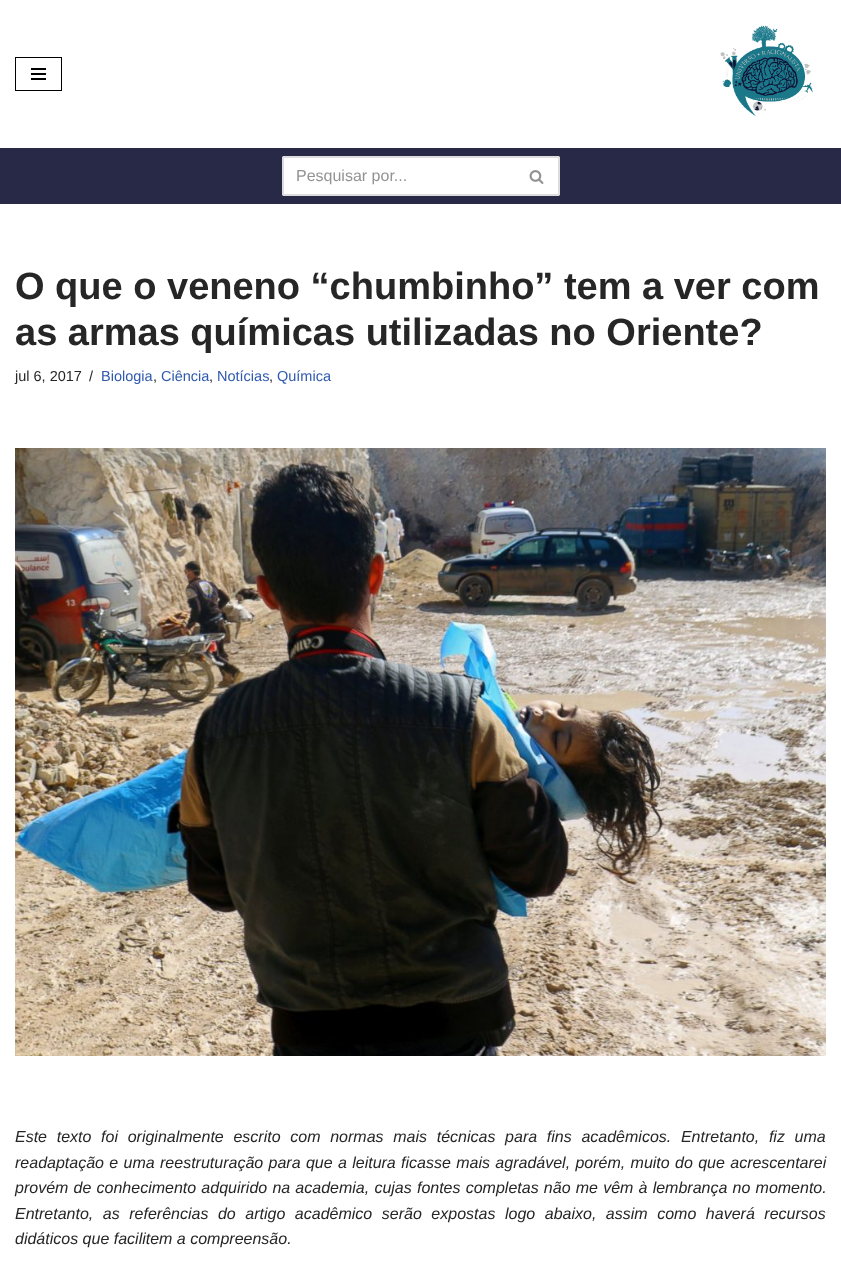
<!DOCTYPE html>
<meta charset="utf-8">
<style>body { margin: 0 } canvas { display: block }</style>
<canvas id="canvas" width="841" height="1271"></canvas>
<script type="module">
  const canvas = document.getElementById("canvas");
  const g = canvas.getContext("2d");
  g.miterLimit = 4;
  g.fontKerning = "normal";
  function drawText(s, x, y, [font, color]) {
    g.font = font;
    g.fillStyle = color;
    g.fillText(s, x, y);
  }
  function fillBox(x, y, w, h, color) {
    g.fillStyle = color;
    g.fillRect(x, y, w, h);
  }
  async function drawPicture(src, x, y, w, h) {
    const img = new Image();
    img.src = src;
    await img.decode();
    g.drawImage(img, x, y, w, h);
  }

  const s1 = ["16px Liberation Sans", "#939393"];
  const s2 = ["bold 38px Liberation Sans", "#272626"];
  const s3 = ["14.5px Liberation Sans", "#272626"];
  const s4 = ["14.5px Liberation Sans", "#2F5AAE"];
  const s5 = ["italic 16px Liberation Sans", "#272626"];

  fillBox(0, 0, 841, 1271, "#FFFFFF");
  g.strokeStyle = "#000000";
  g.strokeRect(15.5, 57.5, 46, 33);
  fillBox(31, 68, 15, 2, "#000000");
  fillBox(31, 73, 15, 2, "#000000");
  fillBox(31, 78, 15, 2, "#000000");
  await drawPicture("pic1.png", 720, 25, 93, 92);
  fillBox(0, 148, 841, 56, "#282947");
  g.fillStyle = "#FFFFFF";
  g.beginPath();
  g.roundRect(282, 156, 233, 40, [2, 0, 0, 2]);
  g.fill();
  fillBox(283, 156, 232, 2, "#DDDDDD");
  fillBox(283, 194, 232, 2, "#DDDDDD");
  fillBox(282, 157, 2, 38, "#DDDDDD");
  drawText("Pesquisar por...", 296, 181, s1);
  g.fillStyle = "#FFFFFF";
  g.beginPath();
  g.roundRect(515, 156, 45, 40, [0, 2, 2, 0]);
  g.fill();
  fillBox(515, 156, 44, 2, "#DDDDDD");
  fillBox(558, 157, 2, 38, "#DDDDDD");
  fillBox(515, 194, 44, 2, "#DDDDDD");
  await drawPicture("pic2.png", 529, 170, 15, 14);
  drawText("O que o veneno “chumbinho” tem a ver com", 15, 299, s2);
  drawText("as armas químicas utilizadas no Oriente?", 15, 345, s2);
  drawText("jul 6, 2017", 15, 381, s3);
  drawText("/", 89, 381, s3);
  drawText("Biologia", 101, 381, s4);
  drawText(",", 153, 381, s3);
  drawText("Ciência", 161, 381, s4);
  drawText(",", 209, 381, s3);
  drawText("Notícias", 217, 381, s4);
  drawText(",", 269, 381, s3);
  drawText("Química", 277, 381, s4);
  await drawPicture("pic3.png", 15, 448, 811, 608);
  g.wordSpacing = "5.25px";
  drawText("Este texto foi originalmente escrito com normas mais técnicas para fins acadêmicos. Entretanto, fiz uma", 15, 1142, s5);
  g.wordSpacing = "0.9px";
  drawText("readaptação e uma reestruturação para que a leitura ficasse mais agradável, porém, muito do que acrescentarei", 15, 1168, s5);
  g.wordSpacing = "0.75px";
  drawText("provém de conhecimento adquirido na academia, cujas fontes completas não me vêm à lembrança no momento.", 15, 1193, s5);
  g.wordSpacing = "5.1px";
  drawText("Entretanto, as referências do artigo acadêmico serão expostas logo abaixo, assim como haverá recursos", 15, 1219, s5);
  g.wordSpacing = "0px";
  drawText("didáticos que facilitem a compreensão.", 15, 1244, s5);
</script>
